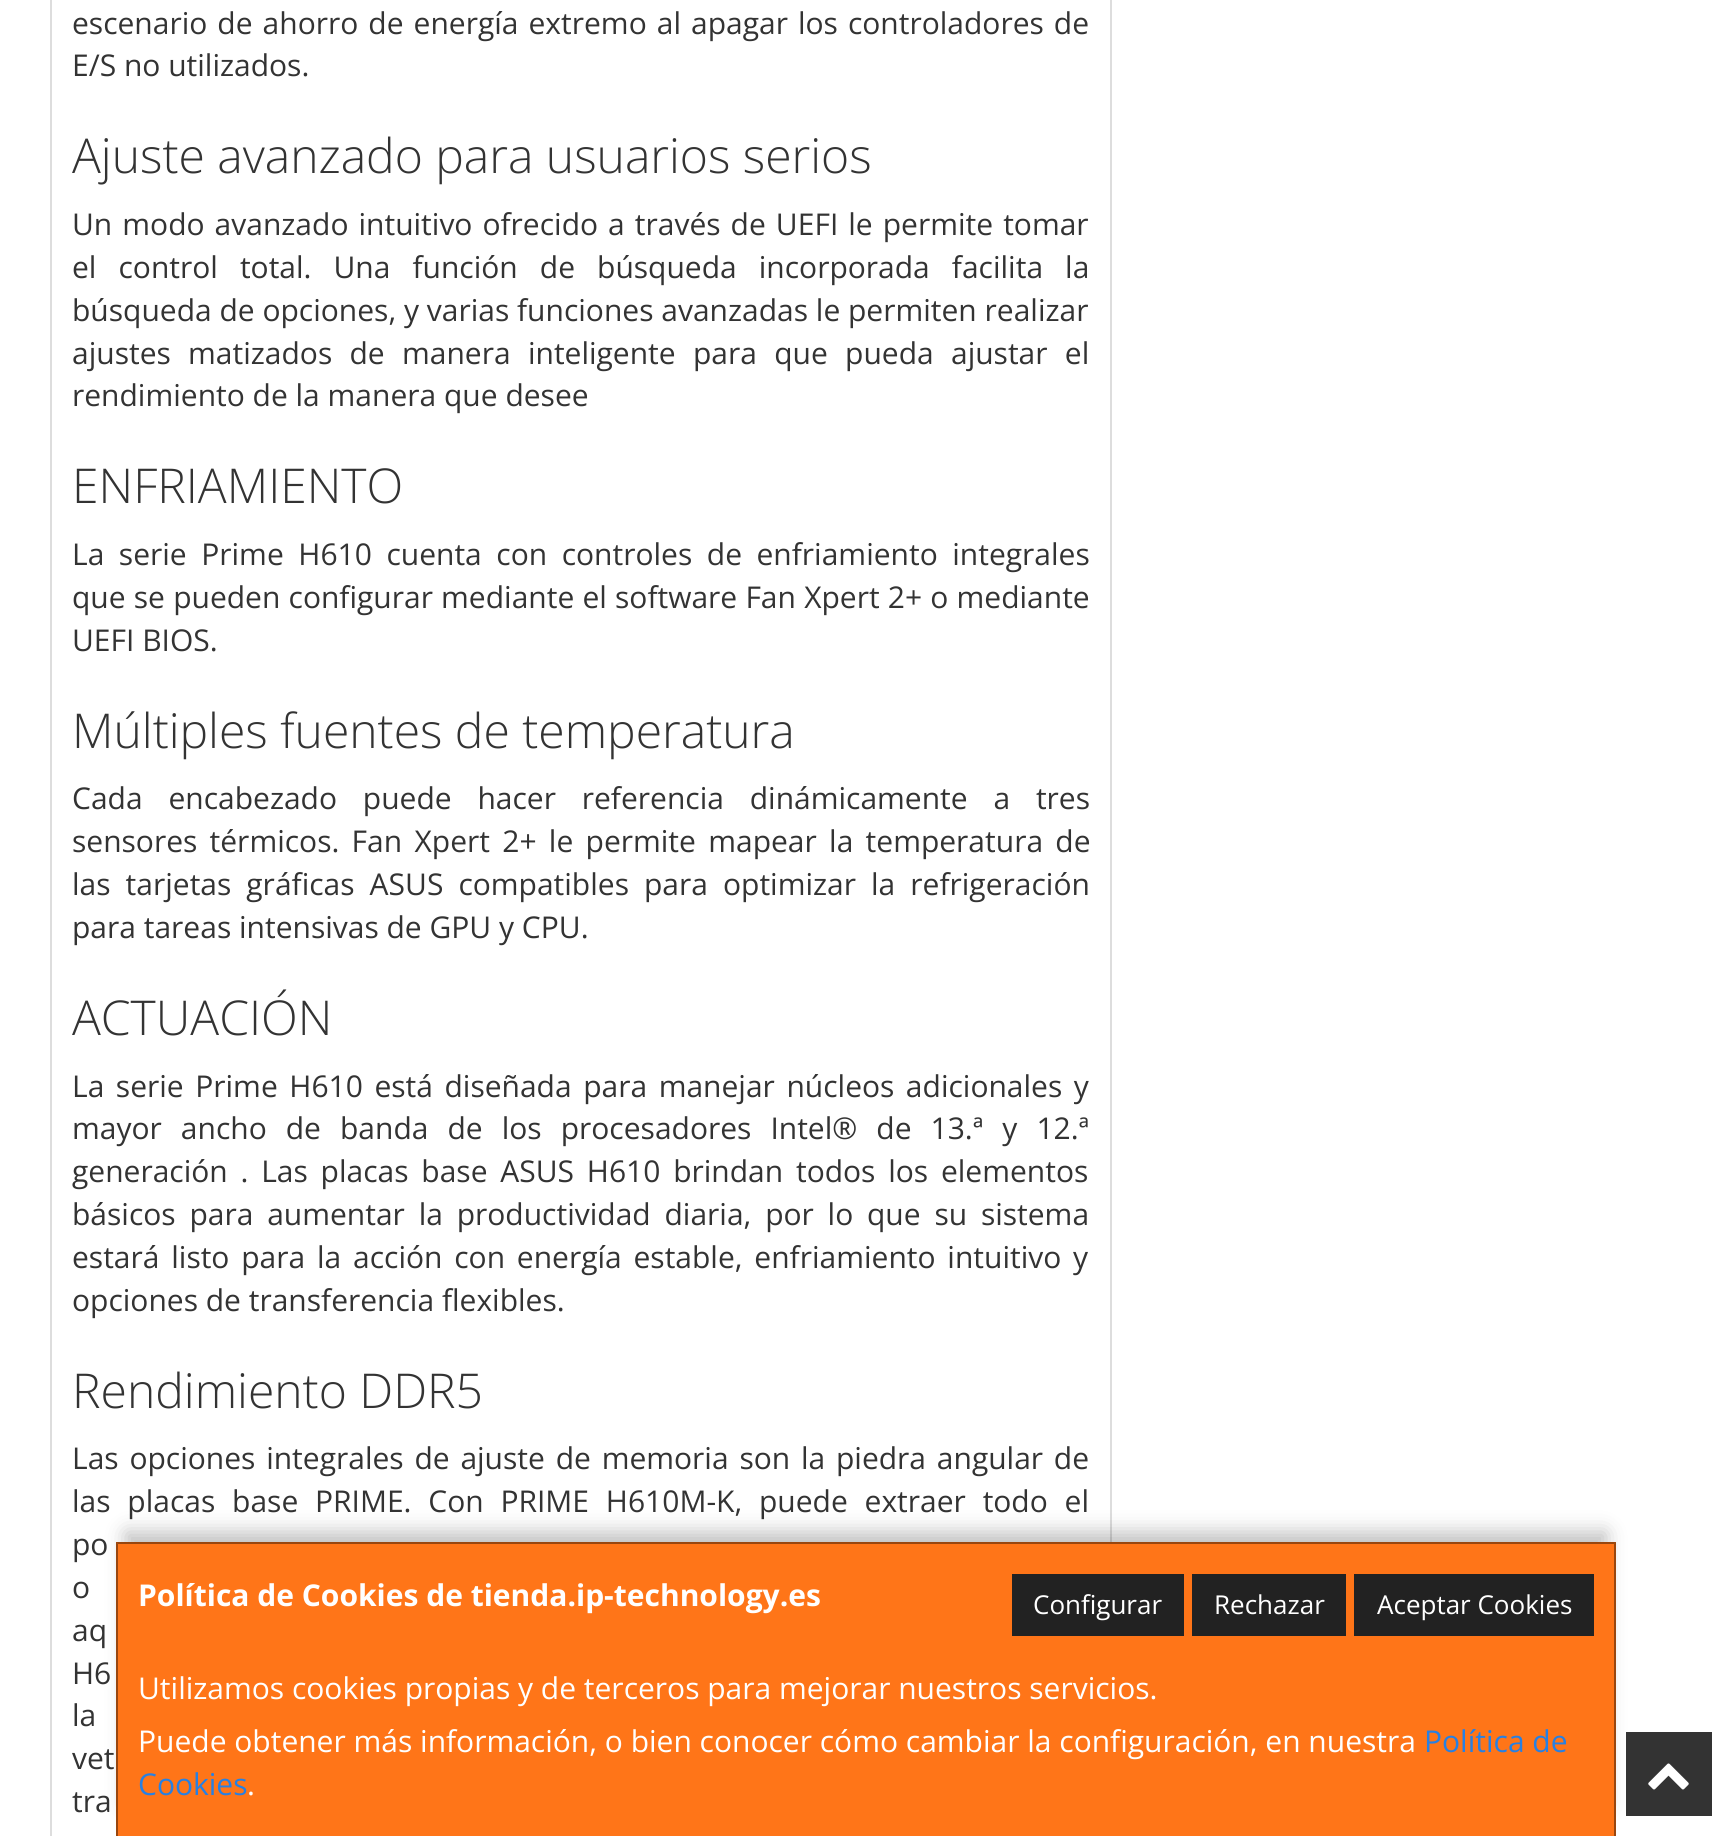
import math
import cairocffi as cairo

surface = cairo.ImageSurface(cairo.FORMAT_RGB24, 1731, 1836)
cr = cairo.Context(surface)
options = cairo.FontOptions()
options.set_hint_metrics(cairo.HINT_METRICS_OFF)
options.set_hint_style(cairo.HINT_STYLE_NONE)
cr.set_font_options(options)
cr.set_miter_limit(4)


def use_color(code):
    cr.set_source_rgb(*(v / 255 for v in bytes.fromhex(code[-6:])))


def spaced_text(x, y, s, letter, word):
    cr.move_to(x, y)
    for ch in s:
        cr.show_text(ch)
        cr.rel_move_to(letter + word * (ch == ' '), 0)


def round_rect(x, y, w, h, r):
    cr.new_sub_path()
    for i, (u, v) in enumerate([(x + w - r, y + h - r), (x + r, y + h - r), (x + r, y + r), (x + w - r, y + r)]):
        cr.arc(u, v, r, i * math.pi / 2, (i + 1) * math.pi / 2)
    cr.close_path()


def shadow(x, y, w, h, r, blur, alpha):
    cr.push_group_with_content(cairo.CONTENT_ALPHA)
    cr.set_operator(cairo.OPERATOR_SOURCE)
    for i in range(15, -16, -2):
        e = blur * i / 6
        if min(w, h) + 2 * e > 0:
            cr.set_source_rgba(0, 0, 0, alpha * math.erfc((i - 1) / 8.5) / 2)
            round_rect(x - e, y - e, w + 2 * e, h + 2 * e, max(0, min(r + e + blur * .6, min(w, h) / 2 + e)))
            cr.fill()
    cr.mask(cr.pop_group())


def picture(path, x, y, w, h):
    cr.save()
    cr.set_source_surface(cairo.ImageSurface.create_from_png(path), x, y)
    cr.rectangle(x, y, w, h)
    cr.fill()
    cr.restore()


use_color("#ffffff")
cr.paint()
cr.rectangle(51, -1, 1060, 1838)
use_color("#dddddd")
cr.stroke()
cr.select_font_face("Open Sans")
cr.set_font_size(30)
use_color("#333333")
spaced_text(72, 34, "escenario de ahorro de energía extremo al apagar los controladores de", 0, 2.25)
cr.move_to(72, 76)
cr.show_text("E/S no utilizados.")
cr.select_font_face("Open Sans Light")
cr.set_font_size(48)
cr.move_to(72, 173)
cr.show_text("Ajuste avanzado para usuarios serios")
cr.select_font_face("Open Sans")
cr.set_font_size(30)
spaced_text(72, 235, "Un modo avanzado intuitivo ofrecido a través de UEFI le permite tomar", 0, 2.25)
spaced_text(72, 278, "el control total. Una función de búsqueda incorporada facilita la", 0, 14.25)
cr.move_to(72, 321)
cr.show_text("búsqueda de opciones, y varias funciones avanzadas le permiten realizar")
spaced_text(72, 364, "ajustes matizados de manera inteligente para que pueda ajustar el", 0, 9.5)
cr.move_to(72, 406)
cr.show_text("rendimiento de la manera que desee")
cr.select_font_face("Open Sans Light")
cr.set_font_size(48)
cr.move_to(72, 503)
cr.show_text("ENFRIAMIENTO")
cr.select_font_face("Open Sans")
cr.set_font_size(30)
spaced_text(72, 565, "La serie Prime H610 cuenta con controles de enfriamiento integrales", 0, 6.75)
spaced_text(72, 608, "que se pueden configurar mediante el software Fan Xpert 2+ o mediante", 0, 0.4)
cr.move_to(72, 651)
cr.show_text("UEFI BIOS.")
cr.select_font_face("Open Sans Light")
cr.set_font_size(48)
cr.move_to(72, 748)
cr.show_text("Múltiples fuentes de temperatura")
cr.select_font_face("Open Sans")
cr.set_font_size(30)
spaced_text(72, 809, "Cada encabezado puede hacer referencia dinámicamente a tres", 0, 18)
spaced_text(72, 852, "sensores térmicos. Fan Xpert 2+ le permite mapear la temperatura de", 0, 4.5)
spaced_text(72, 895, "las tarjetas gráficas ASUS compatibles para optimizar la refrigeración", 0, 7.25)
cr.move_to(72, 938)
cr.show_text("para tareas intensivas de GPU y CPU.")
cr.select_font_face("Open Sans Light")
cr.set_font_size(48)
cr.move_to(72, 1035)
cr.show_text("ACTUACIÓN")
cr.select_font_face("Open Sans")
cr.set_font_size(30)
spaced_text(72, 1097, "La serie Prime H610 está diseñada para manejar núcleos adicionales y", 0, 3.75)
spaced_text(72, 1139, "mayor ancho de banda de los procesadores Intel® de 13.ª y 12.ª", 0, 11.25)
spaced_text(72, 1182, "generación . Las placas base ASUS H610 brindan todos los elementos", 0, 5)
spaced_text(72, 1225, "básicos para aumentar la productividad diaria, por lo que su sistema", 0, 6)
spaced_text(72, 1268, "estará listo para la acción con energía estable, enfriamiento intuitivo y", 0, 4)
cr.move_to(72, 1311)
cr.show_text("opciones de transferencia flexibles.")
cr.select_font_face("Open Sans Light")
cr.set_font_size(48)
cr.move_to(72, 1408)
cr.show_text("Rendimiento DDR5")
cr.select_font_face("Open Sans")
cr.set_font_size(30)
spaced_text(72, 1469, "Las opciones integrales de ajuste de memoria son la piedra angular de", 0, 3)
spaced_text(72, 1512, "las placas base PRIME. Con PRIME H610M-K, puede extraer todo el", 0, 9)
spaced_text(72, 1555, "po", 0, 1)
spaced_text(72, 1598, "o", 0, 7)
spaced_text(72, 1641, "aq", 0, 4)
spaced_text(72, 1684, "H6", 0, 1)
spaced_text(72, 1726, "la", 0, 16)
spaced_text(72, 1769, "vet", 0, 3)
cr.move_to(72, 1812)
cr.show_text("tra")
cr.rectangle(1626, 1732, 86, 84)
cr.fill()
use_color("#000000")
shadow(126, 1532, 1480, 274, 0, 10, 0.25)
use_color("#ff7518")
cr.rectangle(116, 1542, 1500, 294)
cr.fill()
use_color("#99460e")
cr.new_path()
cr.move_to(116, 1542)
cr.line_to(1616, 1542)
cr.line_to(1614, 1544)
cr.line_to(118, 1544)
cr.close_path()
cr.fill()
cr.set_source_rgba(0, 0, 0, 0.4)
cr.new_path()
cr.move_to(1616, 1542)
cr.line_to(1616, 1836)
cr.line_to(1614, 1836)
cr.line_to(1614, 1544)
cr.close_path()
cr.fill()
cr.new_path()
cr.move_to(116, 1836)
cr.line_to(116, 1542)
cr.line_to(118, 1544)
cr.line_to(118, 1836)
cr.close_path()
cr.fill()
cr.select_font_face("Open Sans", cairo.FONT_SLANT_NORMAL, cairo.FONT_WEIGHT_BOLD)
use_color("#ffffff")
cr.move_to(138, 1606)
cr.show_text("Política de Cookies de tienda.ip-technology.es")
use_color("#222222")
cr.rectangle(1012, 1574, 172, 62)
cr.fill()
cr.select_font_face("Open Sans")
cr.set_font_size(26)
use_color("#ffffff")
cr.move_to(1033, 1614)
cr.show_text("Configurar")
use_color("#222222")
cr.rectangle(1192, 1574, 154, 62)
cr.fill()
use_color("#ffffff")
cr.move_to(1214, 1614)
cr.show_text("Rechazar")
use_color("#222222")
cr.rectangle(1354, 1574, 240, 62)
cr.fill()
use_color("#ffffff")
cr.move_to(1377, 1614)
cr.show_text("Aceptar Cookies")
cr.set_font_size(30)
cr.move_to(138, 1699)
cr.show_text("Utilizamos cookies propias y de terceros para mejorar nuestros servicios.")
cr.move_to(138, 1752)
cr.show_text("Puede obtener más información, o bien conocer cómo cambiar la configuración, en nuestra")
use_color("#2780e3")
cr.move_to(1424, 1752)
cr.show_text("Política de")
cr.move_to(138, 1795)
cr.show_text("Cookies")
use_color("#ffffff")
cr.move_to(247, 1795)
cr.show_text(".")
picture("img1.png", 1648, 1763, 41, 27)
surface.write_to_png("result.png")
